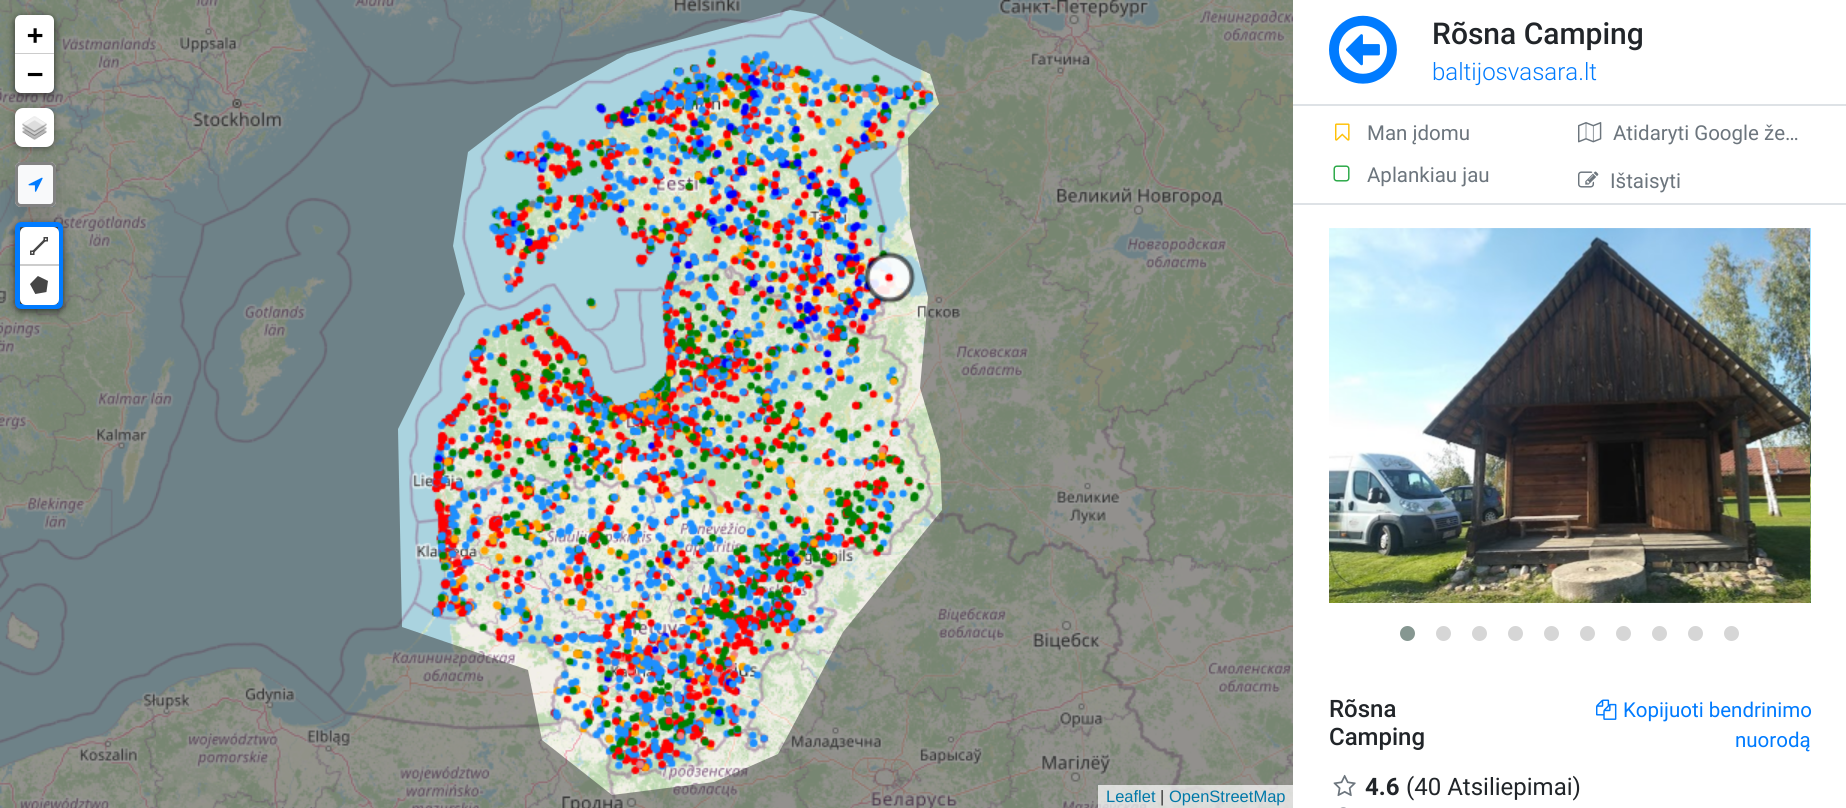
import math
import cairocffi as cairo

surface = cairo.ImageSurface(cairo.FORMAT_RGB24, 1846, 808)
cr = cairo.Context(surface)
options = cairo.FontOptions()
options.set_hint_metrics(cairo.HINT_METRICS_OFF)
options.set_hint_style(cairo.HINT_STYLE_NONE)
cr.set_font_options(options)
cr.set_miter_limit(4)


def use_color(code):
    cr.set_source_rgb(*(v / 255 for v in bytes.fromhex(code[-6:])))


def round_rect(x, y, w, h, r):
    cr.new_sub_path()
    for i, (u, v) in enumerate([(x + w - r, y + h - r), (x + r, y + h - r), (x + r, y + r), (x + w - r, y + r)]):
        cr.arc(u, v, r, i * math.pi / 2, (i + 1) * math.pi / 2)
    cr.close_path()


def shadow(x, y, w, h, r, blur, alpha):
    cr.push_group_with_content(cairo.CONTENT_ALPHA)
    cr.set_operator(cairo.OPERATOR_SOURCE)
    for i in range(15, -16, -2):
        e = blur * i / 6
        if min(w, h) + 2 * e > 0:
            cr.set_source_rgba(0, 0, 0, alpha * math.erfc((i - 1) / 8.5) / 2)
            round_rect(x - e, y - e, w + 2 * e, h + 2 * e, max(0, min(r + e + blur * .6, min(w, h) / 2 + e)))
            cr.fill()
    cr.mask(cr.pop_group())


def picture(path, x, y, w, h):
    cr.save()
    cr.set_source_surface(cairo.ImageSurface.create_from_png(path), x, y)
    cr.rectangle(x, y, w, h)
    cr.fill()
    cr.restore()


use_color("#ffffff")
cr.paint()
picture("img1.png", 0, 0, 156, 171)
picture("img2.png", 156, 0, 384, 171)
picture("img3.png", 540, 0, 384, 171)
picture("img4.png", 924, 0, 369, 171)
picture("img5.png", 0, 171, 156, 384)
picture("img6.png", 156, 171, 384, 384)
picture("img7.png", 540, 171, 384, 384)
picture("img8.png", 924, 171, 369, 384)
picture("img9.png", 0, 555, 156, 253)
picture("img10.png", 156, 555, 384, 253)
picture("img11.png", 540, 555, 384, 253)
picture("img12.png", 924, 555, 369, 253)
picture("img13.png", 431, 48, 503, 727)
cr.save()
cr.rectangle(0, 0, 1293, 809)
cr.clip()
cr.set_source_rgba(0.2, 0.2, 0.2, 0.5)
cr.set_fill_rule(cairo.FILL_RULE_EVEN_ODD)
cr.new_path()
cr.move_to(1426, 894)
cr.line_to(-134, 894)
cr.line_to(-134, -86)
cr.line_to(1426, -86)
cr.close_path()
cr.move_to(518, 114)
cr.line_to(468, 152)
cr.line_to(453, 246)
cr.line_to(465, 294)
cr.line_to(398, 429)
cr.line_to(402, 627)
cr.line_to(528, 670)
cr.line_to(542, 740)
cr.line_to(612, 795)
cr.line_to(714, 782)
cr.line_to(778, 754)
cr.line_to(843, 632)
cr.line_to(942, 510)
cr.line_to(940, 454)
cr.line_to(920, 388)
cr.line_to(928, 297)
cr.line_to(910, 226)
cr.line_to(908, 138)
cr.line_to(939, 104)
cr.line_to(930, 74)
cr.line_to(892, 56)
cr.line_to(816, 14)
cr.line_to(790, 10)
cr.line_to(627, 54)
cr.close_path()
cr.fill()
cr.restore()
use_color("#000000")
shadow(15, 17, 39, 78, 6, 4, 0.65)
use_color("#ffffff")
cr.new_path()
cr.move_to(21, 15)
cr.line_to(48, 15)
cr.curve_to(51.5, 15, 54, 17.5, 54, 21)
cr.line_to(54, 54)
cr.line_to(15, 54)
cr.line_to(15, 21)
cr.curve_to(15, 17.5, 17.5, 15, 21, 15)
cr.close_path()
cr.fill()
use_color("#cccccc")
cr.rectangle(15, 53, 39, 1)
cr.fill()
cr.select_font_face("DejaVu Sans Mono", cairo.FONT_SLANT_NORMAL, cairo.FONT_WEIGHT_BOLD)
cr.set_font_size(27)
use_color("#000000")
cr.move_to(27, 44)
cr.show_text("+")
use_color("#ffffff")
cr.new_path()
cr.move_to(15, 54)
cr.line_to(54, 54)
cr.line_to(54, 87)
cr.curve_to(54, 90.5, 51.5, 93, 48, 93)
cr.line_to(21, 93)
cr.curve_to(17.5, 93, 15, 90.5, 15, 87)
cr.close_path()
cr.fill()
use_color("#000000")
cr.move_to(27, 83)
cr.show_text("−")
use_color("#000000")
shadow(15, 110, 39, 39, 8, 4, 0.4)
use_color("#ffffff")
round_rect(15, 108, 39, 39, 8)
cr.fill()
picture("img14.png", 22, 116, 25, 24)
use_color("#000000")
shadow(15, 174, 41, 45, 6, 12, 0.15)
use_color("#f8f9fa")
round_rect(15, 162, 41, 45, 6)
cr.fill()
round_rect(16.5, 163.5, 38, 42, 4.5)
cr.set_source_rgba(0.392, 0.392, 0.392, 0.8)
cr.set_line_width(3)
cr.stroke()
picture("img15.png", 28, 177, 15, 15)
use_color("#000000")
shadow(15, 224, 48, 87, 6, 4, 0.65)
round_rect(17.5, 224.5, 43, 82, 3.5)
use_color("#007bff")
cr.set_line_width(5)
cr.stroke()
use_color("#ffffff")
cr.new_path()
cr.move_to(26, 227)
cr.line_to(53, 227)
cr.curve_to(56.5, 227, 59, 229.5, 59, 233)
cr.line_to(59, 264)
cr.line_to(20, 264)
cr.line_to(20, 233)
cr.curve_to(20, 229.5, 22.5, 227, 26, 227)
cr.close_path()
cr.fill()
picture("img16.png", 30, 237, 18, 18)
use_color("#cccccc")
cr.rectangle(20, 264, 39, 2)
cr.fill()
use_color("#ffffff")
cr.new_path()
cr.move_to(20, 266)
cr.line_to(59, 266)
cr.line_to(59, 299)
cr.curve_to(59, 302.5, 56.5, 305, 53, 305)
cr.line_to(26, 305)
cr.curve_to(22.5, 305, 20, 302.5, 20, 299)
cr.close_path()
cr.fill()
picture("img17.png", 30, 276, 18, 18)
cr.set_source_rgba(1, 1, 1, 0.7)
cr.rectangle(1098, 785, 195, 23)
cr.fill()
cr.select_font_face("Liberation Sans")
cr.set_font_size(16.5)
use_color("#0078a8")
cr.move_to(1106, 802)
cr.show_text("Leaflet")
use_color("#333333")
cr.move_to(1160, 802)
cr.show_text("|")
use_color("#0078a8")
cr.move_to(1169, 802)
cr.show_text("OpenStreetMap")
use_color("#dee2e6")
cr.rectangle(1293, 104, 553, 2)
cr.fill()
picture("img18.png", 1329, 15, 68, 69)
cr.select_font_face("Roboto Medium")
cr.set_font_size(30)
use_color("#212529")
cr.move_to(1432, 44)
cr.show_text("Rõsna Camping")
cr.select_font_face("Roboto Light")
cr.set_font_size(24)
use_color("#007bff")
cr.move_to(1432, 80)
cr.show_text("baltijosvasara.lt")
use_color("#dee2e6")
cr.rectangle(1293, 203, 553, 2)
cr.fill()
picture("img19.png", 1335, 123, 15, 18)
cr.select_font_face("Roboto")
cr.set_font_size(20.5)
use_color("#6c757d")
cr.move_to(1367, 140)
cr.show_text("Man įdomu")
picture("img20.png", 1333, 165, 17, 17)
cr.move_to(1367, 182)
cr.show_text("Aplankiau jau")
picture("img21.png", 1578, 122, 24, 21)
cr.move_to(1613, 140)
cr.show_text("Atidaryti Google že…")
picture("img22.png", 1578, 171, 21, 17)
cr.move_to(1610, 188)
cr.show_text("Ištaisyti")
picture("img23.png", 1329, 228, 482, 375)
picture("img24.png", 1329, 228, 482, 375)
picture("img25.png", 1810, 228, 1, 375)
picture("img26.png", 1810, 228, 1, 375)
use_color("#869791")
cr.arc(1407.5, 633.5, 7.5, 0, 2 * math.pi)
cr.fill()
use_color("#d6d6d6")
cr.arc(1443.5, 633.5, 7.5, 0, 2 * math.pi)
cr.fill()
cr.arc(1479.5, 633.5, 7.5, 0, 2 * math.pi)
cr.fill()
cr.arc(1515.5, 633.5, 7.5, 0, 2 * math.pi)
cr.fill()
cr.arc(1551.5, 633.5, 7.5, 0, 2 * math.pi)
cr.fill()
cr.arc(1587.5, 633.5, 7.5, 0, 2 * math.pi)
cr.fill()
cr.arc(1623.5, 633.5, 7.5, 0, 2 * math.pi)
cr.fill()
cr.arc(1659.5, 633.5, 7.5, 0, 2 * math.pi)
cr.fill()
cr.arc(1695.5, 633.5, 7.5, 0, 2 * math.pi)
cr.fill()
cr.arc(1731.5, 633.5, 7.5, 0, 2 * math.pi)
cr.fill()
cr.select_font_face("Roboto Medium")
cr.set_font_size(24)
use_color("#212529")
cr.move_to(1329, 717)
cr.show_text("Rõsna")
cr.move_to(1329, 745)
cr.show_text("Camping")
picture("img27.png", 1596, 699, 21, 21)
cr.select_font_face("Roboto")
cr.set_font_size(20.5)
use_color("#007bff")
cr.move_to(1623, 717)
cr.show_text("Kopijuoti bendrinimo")
cr.move_to(1735, 747)
cr.show_text("nuorodą")
picture("img28.png", 1333, 774, 23, 23)
cr.select_font_face("Roboto", cairo.FONT_SLANT_NORMAL, cairo.FONT_WEIGHT_BOLD)
cr.set_font_size(24)
use_color("#212529")
cr.move_to(1365, 795)
cr.show_text("4.6")
cr.select_font_face("Roboto")
cr.move_to(1406, 795)
cr.show_text("(40 Atsiliepimai)")
picture("img29.png", 1340, 807, 6, 1)
surface.write_to_png("result.png")
